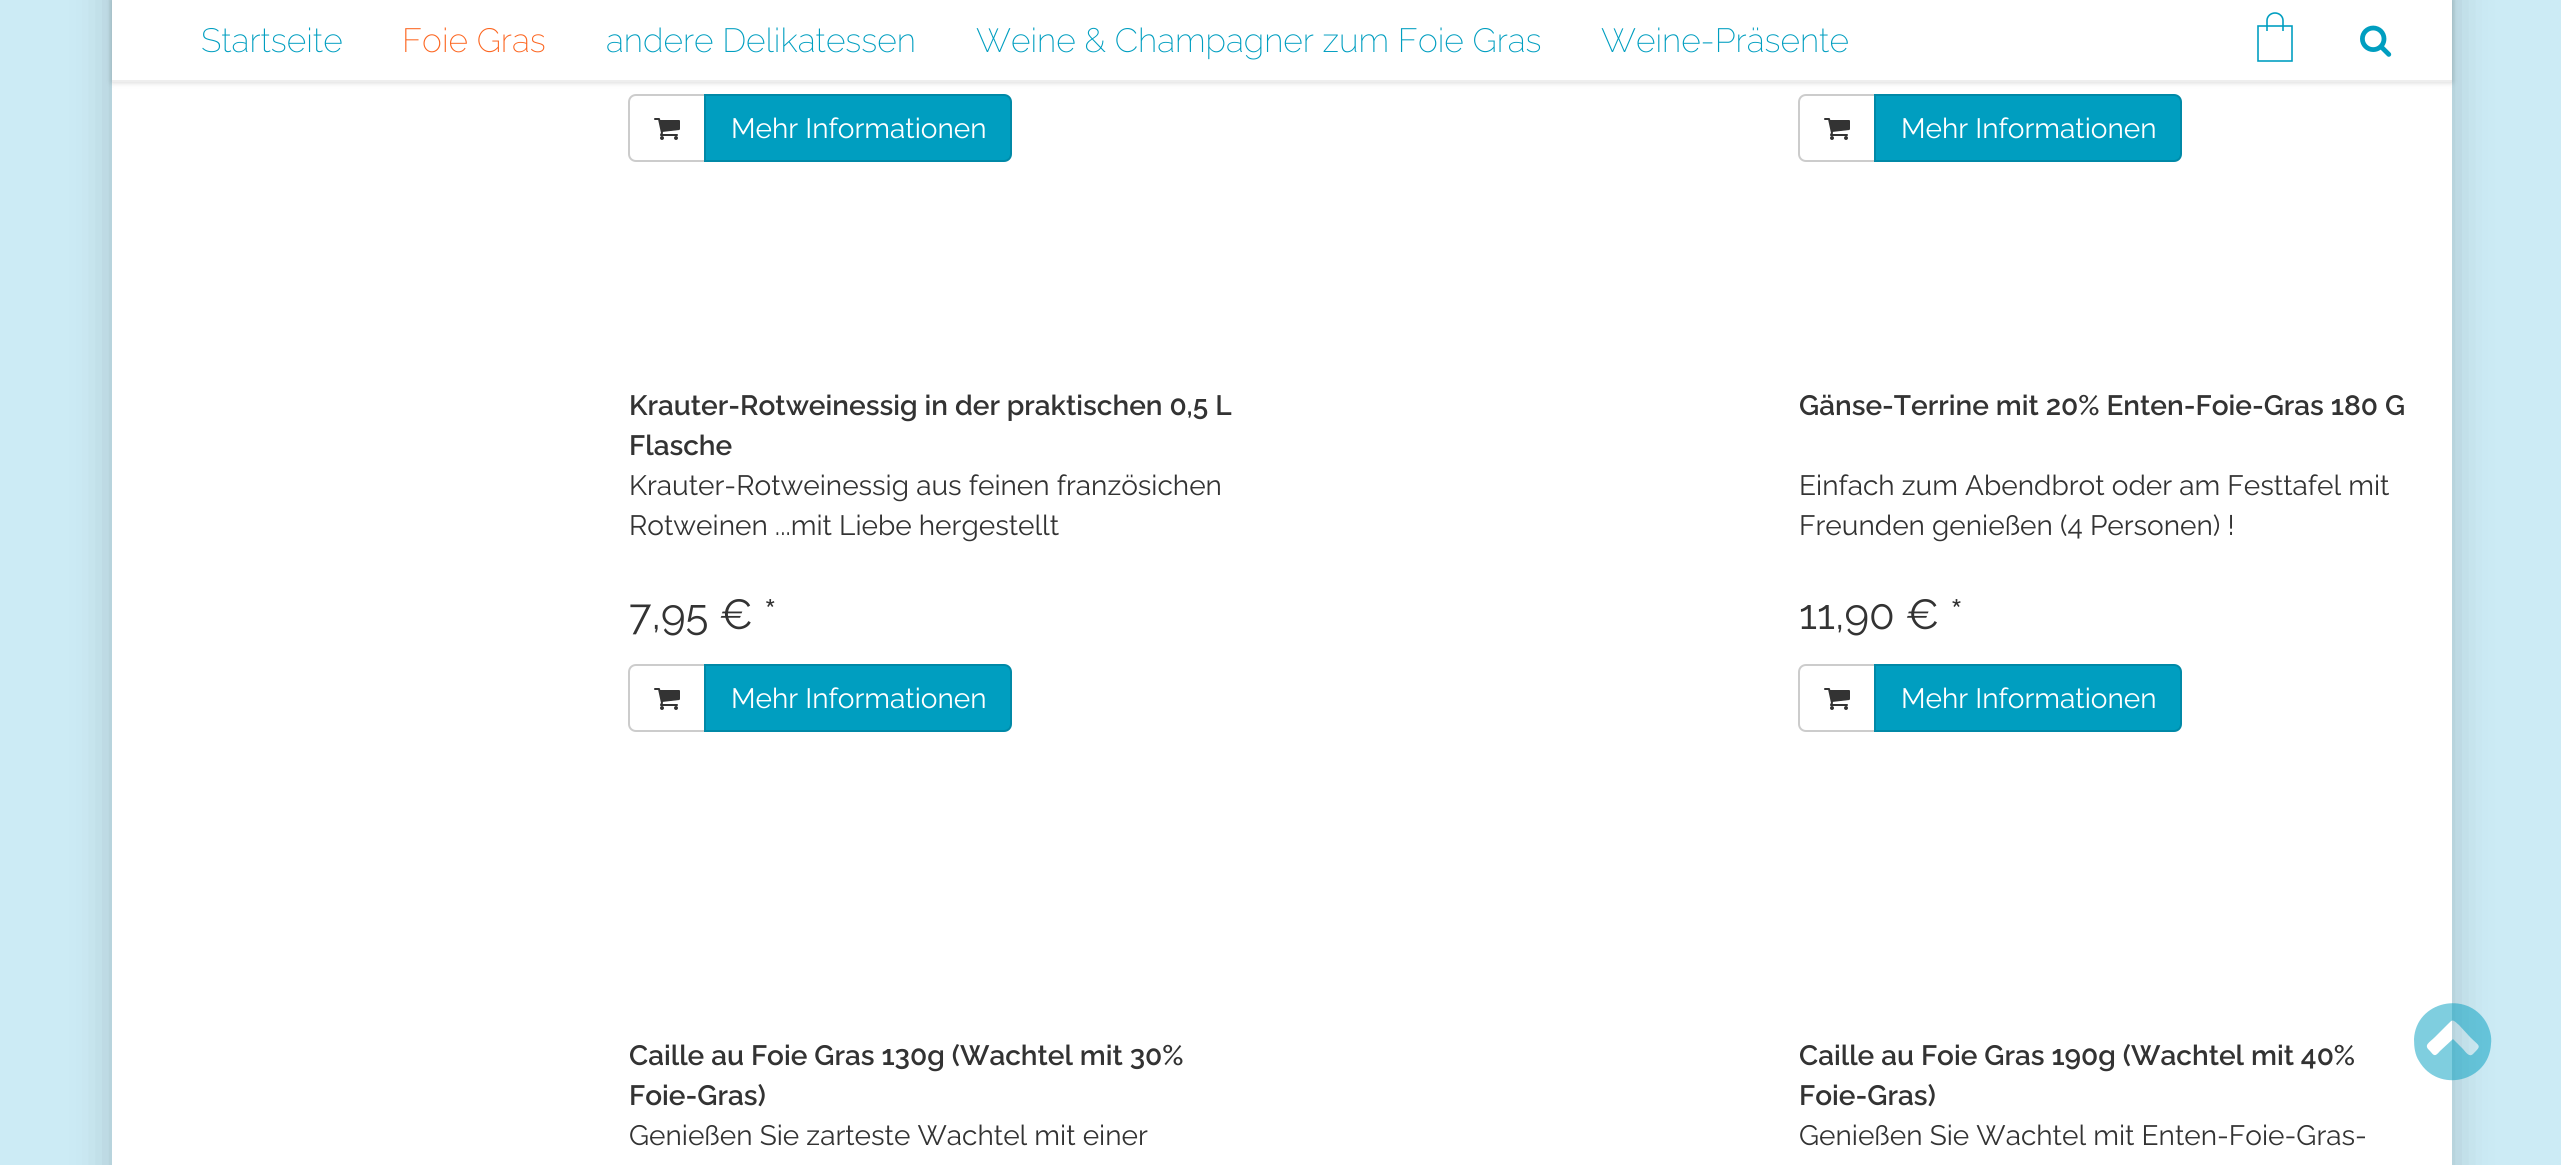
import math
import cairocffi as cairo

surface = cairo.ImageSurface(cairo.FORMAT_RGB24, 2561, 1165)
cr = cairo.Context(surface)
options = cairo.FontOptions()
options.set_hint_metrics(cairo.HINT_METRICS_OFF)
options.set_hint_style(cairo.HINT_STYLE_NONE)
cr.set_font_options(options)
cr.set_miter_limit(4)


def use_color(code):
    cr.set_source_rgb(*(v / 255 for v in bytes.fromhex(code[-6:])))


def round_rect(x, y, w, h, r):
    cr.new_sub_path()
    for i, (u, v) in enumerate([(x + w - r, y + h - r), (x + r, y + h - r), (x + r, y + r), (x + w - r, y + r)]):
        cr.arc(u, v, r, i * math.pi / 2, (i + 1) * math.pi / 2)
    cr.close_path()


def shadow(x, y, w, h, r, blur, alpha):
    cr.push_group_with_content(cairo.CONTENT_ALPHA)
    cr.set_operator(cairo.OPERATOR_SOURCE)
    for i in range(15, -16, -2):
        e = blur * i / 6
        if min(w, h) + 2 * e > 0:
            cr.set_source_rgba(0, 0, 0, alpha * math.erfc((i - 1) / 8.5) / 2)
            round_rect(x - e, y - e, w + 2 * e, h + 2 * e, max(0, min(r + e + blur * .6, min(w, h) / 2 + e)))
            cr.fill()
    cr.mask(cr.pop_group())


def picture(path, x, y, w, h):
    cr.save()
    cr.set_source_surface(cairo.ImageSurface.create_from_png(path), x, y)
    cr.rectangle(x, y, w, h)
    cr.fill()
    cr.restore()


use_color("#ccebf5")
cr.paint()
use_color("#000000")
shadow(112, -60, 2340, 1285, 0, 20, 0.2)
use_color("#ffffff")
cr.rectangle(112, 82, 2340, 1083)
cr.fill()
cr.rectangle(112, 0, 2340, 80)
cr.fill()
cr.save()
cr.set_fill_rule(cairo.FILL_RULE_EVEN_ODD)
cr.new_path()
cr.move_to(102, 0)
cr.line_to(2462, 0)
cr.line_to(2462, 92)
cr.line_to(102, 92)
cr.close_path()
cr.move_to(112, 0)
cr.line_to(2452, 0)
cr.line_to(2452, 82)
cr.line_to(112, 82)
cr.close_path()
cr.clip()
use_color("#000000")
shadow(112, 0, 2340, 82, 0, 3, 0.2)
cr.restore()
use_color("#eeeeee")
cr.rectangle(112, 80, 2340, 2)
cr.fill()
cr.select_font_face("Raleway ExtraLight")
cr.set_font_size(33.6)
use_color("#009ec0")
cr.move_to(201, 52)
cr.show_text("Startseite")
use_color("#fc6621")
cr.move_to(402, 52)
cr.show_text("Foie Gras")
use_color("#009ec0")
cr.move_to(606, 52)
cr.show_text("andere Delikatessen")
cr.move_to(976, 52)
cr.show_text("Weine & Champagner zum Foie Gras")
cr.move_to(1601, 52)
cr.show_text("Weine-Präsente")
cr.new_path()
cr.move_to(2284.5, 26)
cr.line_to(2292, 26)
cr.line_to(2292, 61)
cr.line_to(2258, 61)
cr.line_to(2258, 26)
cr.line_to(2265.5, 26)
cr.close_path()
cr.move_to(2267, 31)
cr.line_to(2267, 20.5)
cr.curve_to(2267, 16.5, 2270.5, 13, 2275, 13)
cr.curve_to(2279.5, 13, 2283, 16.5, 2283, 20.5)
cr.line_to(2283, 31)
cr.set_line_width(1.6)
cr.stroke()
picture("img1.png", 2360, 25, 32, 32)
cr.new_path()
cr.move_to(636, 95)
cr.line_to(705, 95)
cr.line_to(705, 161)
cr.line_to(636, 161)
cr.curve_to(632, 161, 629, 158, 629, 154)
cr.line_to(629, 102)
cr.curve_to(629, 98, 632, 95, 636, 95)
cr.close_path()
use_color("#cccccc")
cr.set_line_width(2)
cr.stroke()
picture("img2.png", 654, 118, 26, 22)
use_color("#009ec0")
cr.new_path()
cr.move_to(705, 95)
cr.line_to(1004, 95)
cr.curve_to(1008, 95, 1011, 98, 1011, 102)
cr.line_to(1011, 154)
cr.curve_to(1011, 158, 1008, 161, 1004, 161)
cr.line_to(705, 161)
cr.close_path()
cr.fill_preserve()
use_color("#0089a7")
cr.stroke()
cr.select_font_face("Raleway")
cr.set_font_size(28)
use_color("#ffffff")
cr.move_to(731, 138)
cr.show_text("Mehr Informationen")
cr.new_path()
cr.move_to(1806, 95)
cr.line_to(1875, 95)
cr.line_to(1875, 161)
cr.line_to(1806, 161)
cr.curve_to(1802, 161, 1799, 158, 1799, 154)
cr.line_to(1799, 102)
cr.curve_to(1799, 98, 1802, 95, 1806, 95)
cr.close_path()
use_color("#cccccc")
cr.stroke()
picture("img2.png", 1824, 118, 26, 22)
use_color("#009ec0")
cr.new_path()
cr.move_to(1875, 95)
cr.line_to(2174, 95)
cr.curve_to(2178, 95, 2181, 98, 2181, 102)
cr.line_to(2181, 154)
cr.curve_to(2181, 158, 2178, 161, 2174, 161)
cr.line_to(1875, 161)
cr.close_path()
cr.fill_preserve()
use_color("#0089a7")
cr.stroke()
use_color("#ffffff")
cr.move_to(1901, 138)
cr.show_text("Mehr Informationen")
cr.select_font_face("Raleway SemiBold")
use_color("#333333")
cr.move_to(629, 415)
cr.show_text("Krauter-Rotweinessig in der praktischen 0,5 L")
cr.move_to(629, 455)
cr.show_text("Flasche")
cr.select_font_face("Raleway")
cr.move_to(629, 495)
cr.show_text("Krauter-Rotweinessig aus feinen französichen")
cr.move_to(629, 535)
cr.show_text("Rotweinen ...mit Liebe hergestellt")
cr.set_font_size(42)
cr.move_to(629, 629)
cr.show_text("7,95 € *")
cr.new_path()
cr.move_to(636, 665)
cr.line_to(705, 665)
cr.line_to(705, 731)
cr.line_to(636, 731)
cr.curve_to(632, 731, 629, 728, 629, 724)
cr.line_to(629, 672)
cr.curve_to(629, 668, 632, 665, 636, 665)
cr.close_path()
use_color("#cccccc")
cr.stroke()
picture("img2.png", 654, 688, 26, 22)
use_color("#009ec0")
cr.new_path()
cr.move_to(705, 665)
cr.line_to(1004, 665)
cr.curve_to(1008, 665, 1011, 668, 1011, 672)
cr.line_to(1011, 724)
cr.curve_to(1011, 728, 1008, 731, 1004, 731)
cr.line_to(705, 731)
cr.close_path()
cr.fill_preserve()
use_color("#0089a7")
cr.stroke()
cr.set_font_size(28)
use_color("#ffffff")
cr.move_to(731, 708)
cr.show_text("Mehr Informationen")
cr.select_font_face("Raleway SemiBold")
use_color("#333333")
cr.move_to(1799, 415)
cr.show_text("Gänse-Terrine mit 20% Enten-Foie-Gras 180 G")
cr.select_font_face("Raleway")
cr.move_to(1799, 495)
cr.show_text("Einfach zum Abendbrot oder am Festtafel mit")
cr.move_to(1799, 535)
cr.show_text("Freunden genießen (4 Personen) !")
cr.set_font_size(42)
cr.move_to(1799, 629)
cr.show_text("11,90 € *")
cr.new_path()
cr.move_to(1806, 665)
cr.line_to(1875, 665)
cr.line_to(1875, 731)
cr.line_to(1806, 731)
cr.curve_to(1802, 731, 1799, 728, 1799, 724)
cr.line_to(1799, 672)
cr.curve_to(1799, 668, 1802, 665, 1806, 665)
cr.close_path()
use_color("#cccccc")
cr.stroke()
picture("img2.png", 1824, 688, 26, 22)
use_color("#009ec0")
cr.new_path()
cr.move_to(1875, 665)
cr.line_to(2174, 665)
cr.curve_to(2178, 665, 2181, 668, 2181, 672)
cr.line_to(2181, 724)
cr.curve_to(2181, 728, 2178, 731, 2174, 731)
cr.line_to(1875, 731)
cr.close_path()
cr.fill_preserve()
use_color("#0089a7")
cr.stroke()
cr.set_font_size(28)
use_color("#ffffff")
cr.move_to(1901, 708)
cr.show_text("Mehr Informationen")
cr.select_font_face("Raleway SemiBold")
use_color("#333333")
cr.move_to(629, 1065)
cr.show_text("Caille au Foie Gras 130g (Wachtel mit 30%")
cr.move_to(629, 1105)
cr.show_text("Foie-Gras)")
cr.select_font_face("Raleway")
cr.move_to(629, 1145)
cr.show_text("Genießen Sie zarteste Wachtel mit einer")
cr.select_font_face("Raleway SemiBold")
cr.move_to(1799, 1065)
cr.show_text("Caille au Foie Gras 190g (Wachtel mit 40%")
cr.move_to(1799, 1105)
cr.show_text("Foie-Gras)")
cr.select_font_face("Raleway")
cr.move_to(1799, 1145)
cr.show_text("Genießen Sie Wachtel mit Enten-Foie-Gras-")
cr.set_source_rgba(0, 0.62, 0.753, 0.5)
cr.new_path()
cr.move_to(2473, 1054)
cr.curve_to(2482, 1045, 2480, 1047, 2470, 1037)
cr.line_to(2459, 1025)
cr.curve_to(2452, 1019, 2453, 1019, 2447, 1025)
cr.line_to(2435, 1037)
cr.curve_to(2429, 1043, 2423, 1045, 2430, 1051)
cr.curve_to(2434, 1056, 2435, 1057, 2440, 1051)
cr.line_to(2453, 1039)
cr.line_to(2463, 1049)
cr.curve_to(2465, 1051, 2469, 1058, 2473, 1054)
cr.close_path()
cr.move_to(2486, 1022)
cr.curve_to(2490, 1029, 2492, 1037, 2491, 1044)
cr.curve_to(2489, 1082, 2438, 1094, 2419, 1061)
cr.curve_to(2415, 1055, 2414, 1047, 2414, 1039)
cr.curve_to(2416, 1001, 2467, 990, 2486, 1022)
cr.close_path()
cr.fill()
surface.write_to_png("result.png")
